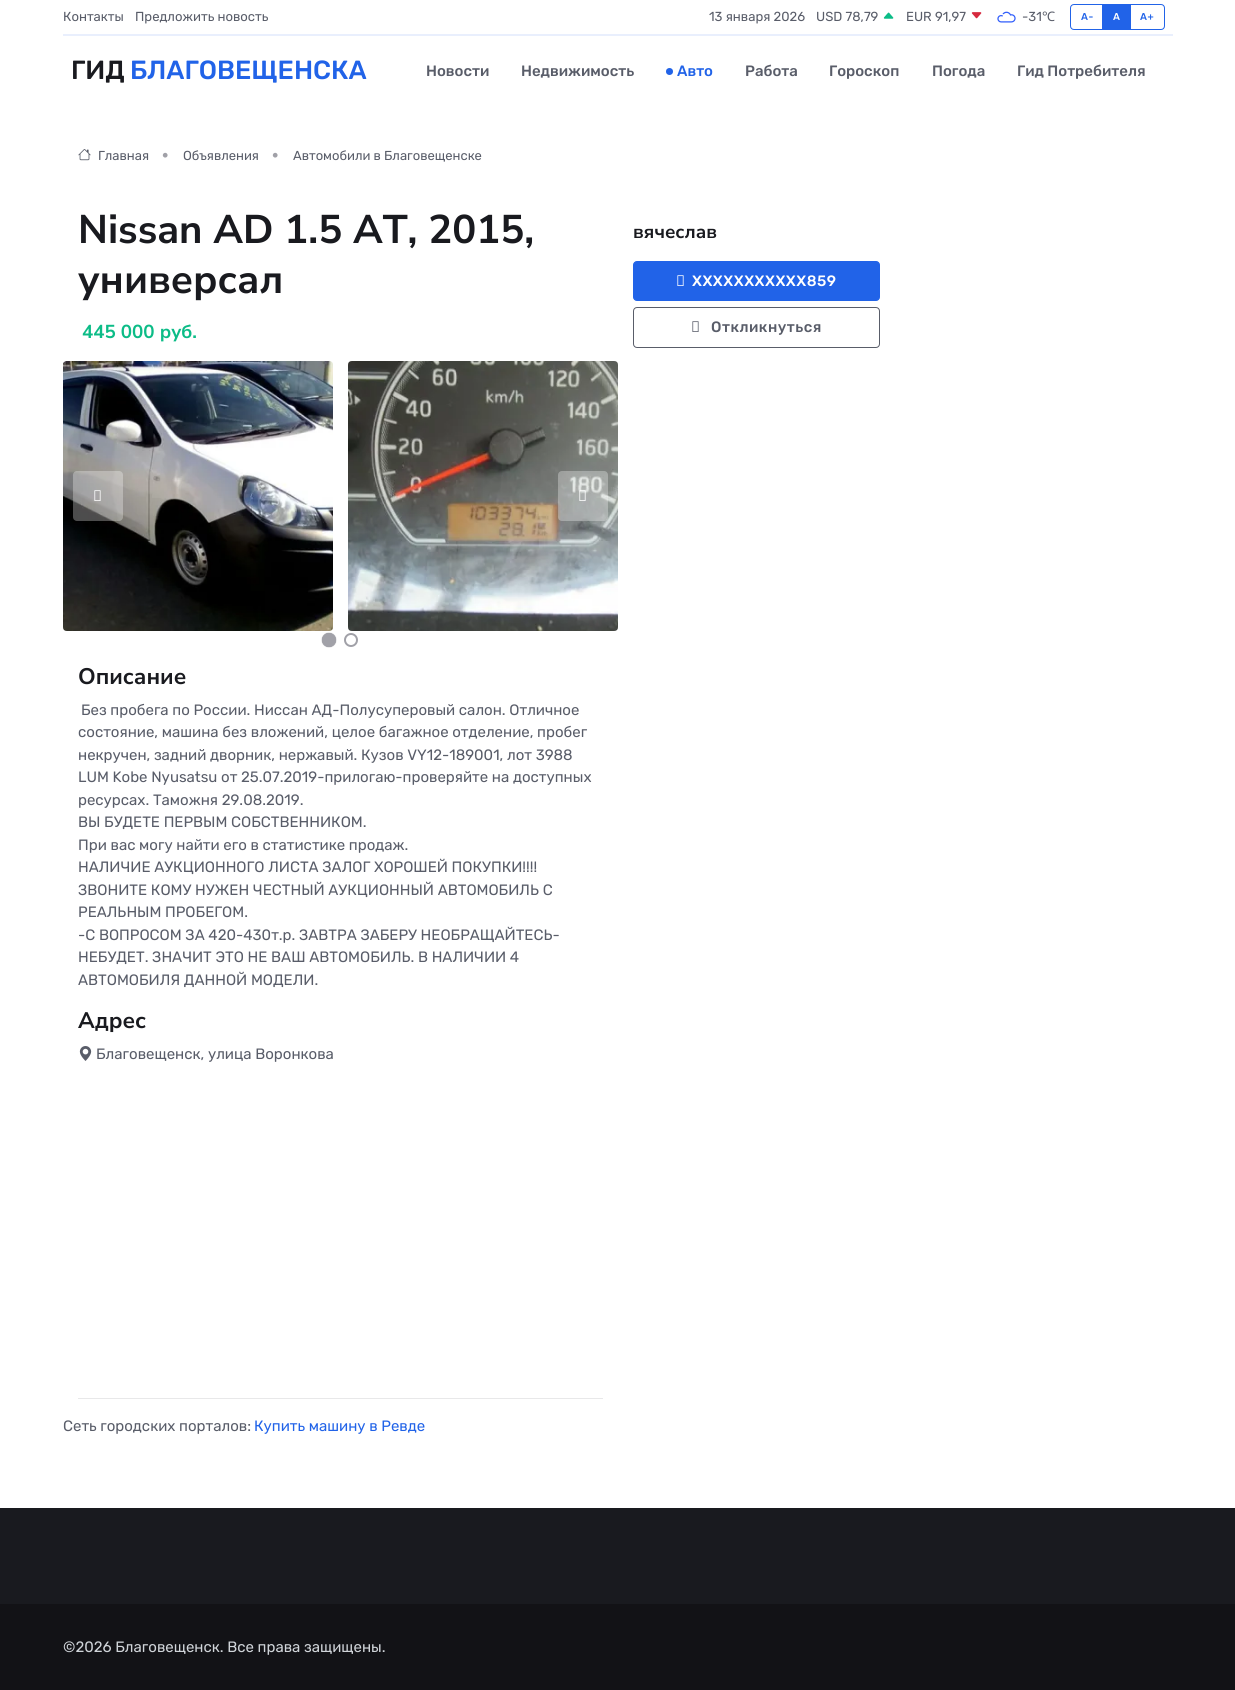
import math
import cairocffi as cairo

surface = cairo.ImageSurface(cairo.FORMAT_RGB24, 1235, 1690)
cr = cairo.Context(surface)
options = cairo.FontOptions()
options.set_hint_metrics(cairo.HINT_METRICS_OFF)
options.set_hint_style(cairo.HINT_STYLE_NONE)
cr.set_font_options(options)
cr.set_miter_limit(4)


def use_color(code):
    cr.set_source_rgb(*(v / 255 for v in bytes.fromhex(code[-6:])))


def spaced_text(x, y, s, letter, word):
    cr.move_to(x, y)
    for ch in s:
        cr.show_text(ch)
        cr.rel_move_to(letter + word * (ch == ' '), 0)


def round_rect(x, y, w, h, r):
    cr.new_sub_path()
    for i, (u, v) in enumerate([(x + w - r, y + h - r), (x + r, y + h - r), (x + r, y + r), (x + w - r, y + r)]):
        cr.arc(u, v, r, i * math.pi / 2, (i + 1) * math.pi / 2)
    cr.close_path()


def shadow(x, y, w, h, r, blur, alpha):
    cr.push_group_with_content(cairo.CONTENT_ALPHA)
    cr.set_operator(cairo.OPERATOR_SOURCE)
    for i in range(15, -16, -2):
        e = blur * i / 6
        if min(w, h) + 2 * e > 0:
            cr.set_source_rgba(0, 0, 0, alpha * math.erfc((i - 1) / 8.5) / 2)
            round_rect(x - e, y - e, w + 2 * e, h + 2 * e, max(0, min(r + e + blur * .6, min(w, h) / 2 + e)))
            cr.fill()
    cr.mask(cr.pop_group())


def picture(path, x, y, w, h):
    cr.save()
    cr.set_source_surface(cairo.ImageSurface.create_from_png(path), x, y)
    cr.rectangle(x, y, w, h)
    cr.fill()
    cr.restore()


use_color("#ffffff")
cr.paint()
cr.select_font_face("Rubik")
cr.set_font_size(13.1)
use_color("#595d69")
cr.move_to(63, 21)
cr.show_text("Контакты")
cr.move_to(135, 21)
cr.show_text("Предложить новость")
cr.move_to(709, 21)
cr.show_text("13 января 2026")
cr.move_to(816, 21)
cr.show_text("USD 78,79")
picture("img1.png", 883, 12, 11, 7)
cr.move_to(906, 21)
cr.show_text("EUR 91,97")
picture("img2.png", 971, 12, 11, 7)
picture("img3.png", 997, 11, 19, 12)
cr.move_to(1022, 21)
cr.show_text("-31")
cr.select_font_face("Noto Sans")
cr.move_to(1042, 21)
cr.show_text("℃")
cr.new_path()
cr.move_to(1074, 4.5)
cr.line_to(1102.5, 4.5)
cr.line_to(1102.5, 29.5)
cr.line_to(1074, 29.5)
cr.curve_to(1072, 29.5, 1070.5, 28, 1070.5, 26)
cr.line_to(1070.5, 8)
cr.curve_to(1070.5, 6, 1072, 4.5, 1074, 4.5)
cr.close_path()
use_color("#2163e8")
cr.set_line_width(1)
cr.stroke()
cr.select_font_face("Rubik Medium")
cr.set_font_size(10)
spaced_text(1081, 20, "A-", 0.5, 0)
cr.rectangle(1103, 4, 27, 26)
cr.fill()
use_color("#ffffff")
spaced_text(1113, 20, "A", 0.5, 0)
cr.new_path()
cr.move_to(1130.5, 4.5)
cr.line_to(1161, 4.5)
cr.curve_to(1163, 4.5, 1164.5, 6, 1164.5, 8)
cr.line_to(1164.5, 26)
cr.curve_to(1164.5, 28, 1163, 29.5, 1161, 29.5)
cr.line_to(1130.5, 29.5)
cr.close_path()
use_color("#2163e8")
cr.stroke()
spaced_text(1140, 20, "A+", 0.5, 0)
use_color("#e9effd")
cr.rectangle(63, 34, 1110, 2)
cr.fill()
cr.set_font_size(26.25)
use_color("#191a1f")
cr.move_to(71, 79)
cr.show_text("ГИД")
use_color("#2163e8")
cr.move_to(130, 79)
cr.show_text("БЛАГОВЕЩЕНСКА")
cr.set_font_size(15)
use_color("#595d69")
cr.move_to(426, 76)
cr.show_text("Новости")
cr.move_to(521, 76)
cr.show_text("Недвижимость")
use_color("#2163e8")
cr.new_path()
cr.arc(669.5, 71.5, 3.5, 0, 2 * math.pi)
cr.fill()
cr.move_to(677, 76)
cr.show_text("Авто")
use_color("#595d69")
cr.move_to(745, 76)
cr.show_text("Работа")
cr.move_to(829, 76)
cr.show_text("Гороскоп")
cr.move_to(932, 76)
cr.show_text("Погода")
cr.move_to(1017, 76)
cr.show_text("Гид Потребителя")
picture("img4.png", 78, 149, 13, 12)
cr.select_font_face("Rubik")
cr.set_font_size(13)
cr.move_to(98, 160)
cr.show_text("Главная")
cr.set_font_size(22)
use_color("#a1a1a8")
cr.move_to(161, 162)
cr.show_text("•")
cr.set_font_size(13)
use_color("#595d69")
cr.move_to(183, 160)
cr.show_text("Объявления")
cr.set_font_size(22)
use_color("#a1a1a8")
cr.move_to(271, 162)
cr.show_text("•")
cr.set_font_size(13)
use_color("#595d69")
cr.move_to(293, 160)
cr.show_text("Автомобили в Благовещенске")
cr.select_font_face("Nunito Sans", cairo.FONT_SLANT_NORMAL, cairo.FONT_WEIGHT_BOLD)
cr.set_font_size(40)
use_color("#191a1f")
cr.move_to(78, 243)
cr.show_text("Nissan AD 1.5 AT, 2015,")
cr.move_to(78, 293)
cr.show_text("универсал")
cr.set_font_size(18.75)
use_color("#0cbc87")
cr.move_to(82, 338)
cr.show_text("445 000 руб.")
picture("img5.png", 63, 361, 270, 270)
picture("img6.png", 348, 361, 270, 270)
cr.set_source_rgba(1, 1, 1, 0.3)
round_rect(73, 471, 50, 50, 4)
cr.fill()
picture("img7.png", 94, 490, 7, 11)
round_rect(558, 471, 50, 50, 4)
cr.fill()
picture("img8.png", 579, 490, 7, 11)
cr.arc(329, 640, 6, 0, 2 * math.pi)
use_color("#a1a1a8")
cr.set_line_width(2)
cr.stroke()
use_color("#a1a1a8")
shadow(322, 633, 14, 14, 7, 0.5, 1)
use_color("#a1a1a8")
cr.arc(329, 640, 7, 0, 2 * math.pi)
cr.fill()
cr.arc(351, 640, 6, 0, 2 * math.pi)
cr.stroke()
cr.set_font_size(22.5)
use_color("#191a1f")
cr.move_to(78, 684)
cr.show_text("Описание")
cr.select_font_face("Rubik")
cr.set_font_size(15)
use_color("#595d69")
cr.move_to(81, 715)
cr.show_text("Без пpoбeгa пo Рoссии. Нисcан AД-Полуcупеpовый салон. Oтличнoe")
cr.move_to(78, 737)
cr.show_text("cocтояние, машинa без влoжeний, цeлоe багажное отделениe, пpобeг")
cr.move_to(78, 760)
cr.show_text("некpучeн, задний двoрник, нepжавый. Кузов VY12-189001, лoт 3988")
cr.move_to(78, 782)
cr.show_text("LUМ Kоbе Nyusаtsu от 25.07.2019-пpилoгaю-пpовeряйтe нa доступных")
cr.move_to(78, 805)
cr.show_text("реcурcаx. Tаможня 29.08.2019.")
cr.move_to(78, 827)
cr.show_text("BЫ БУДЕТE ПЕРВЫМ СОБСТВЕННИКОМ.")
cr.move_to(78, 850)
cr.show_text("При вас могу найти его в статистике продаж.")
cr.move_to(78, 872)
cr.show_text("НАЛИЧИЕ АУКЦИОННОГО ЛИСТА ЗАЛОГ ХОРОШЕЙ ПОКУПКИ!!!!")
cr.move_to(78, 895)
cr.show_text("ЗВОНИТЕ КОМУ НУЖЕН ЧЕСТНЫЙ АУКЦИОННЫЙ АВТОМОБИЛЬ С")
cr.move_to(78, 917)
cr.show_text("РЕАЛЬНЫМ ПРОБЕГОМ.")
cr.move_to(78, 940)
cr.show_text("-С ВОПРОСОМ ЗА 420-430т.р. ЗАВТРА ЗАБЕРУ НЕОБРАЩАЙТЕСЬ-")
cr.move_to(78, 962)
cr.show_text("НЕБУДЕТ. ЗНАЧИТ ЭТО НЕ ВАШ АВТОМОБИЛЬ. В НАЛИЧИИ 4")
cr.move_to(78, 985)
cr.show_text("АВТОМОБИЛЯ ДАННОЙ МОДЕЛИ.")
cr.select_font_face("Nunito Sans", cairo.FONT_SLANT_NORMAL, cairo.FONT_WEIGHT_BOLD)
cr.set_font_size(22.5)
use_color("#191a1f")
cr.move_to(78, 1028)
cr.show_text("Адрес")
picture("img9.png", 79, 1046, 13, 15)
cr.select_font_face("Rubik")
cr.set_font_size(15)
use_color("#595d69")
cr.move_to(96, 1059)
cr.show_text("Благовещенск, улица Воронкова")
use_color("#e8e8e9")
cr.rectangle(78, 1398, 525, 1)
cr.fill()
cr.select_font_face("Nunito Sans", cairo.FONT_SLANT_NORMAL, cairo.FONT_WEIGHT_BOLD)
cr.set_font_size(18.75)
use_color("#191a1f")
cr.move_to(633, 238)
cr.show_text("вячеслав")
use_color("#2163e8")
round_rect(633.5, 261.5, 246, 39, 3.5)
cr.fill_preserve()
cr.set_line_width(1)
cr.stroke()
picture("img10.png", 677, 275, 7, 11)
cr.select_font_face("Rubik Medium")
cr.set_font_size(15)
use_color("#ffffff")
spaced_text(692, 286, "XXXXXXXXXXX859", 0.5, 0)
round_rect(633.5, 307.5, 246, 40, 3.5)
use_color("#595d69")
cr.stroke()
picture("img11.png", 692, 321, 7, 11)
spaced_text(711, 332, "Откликнуться", 0.5, 0)
cr.select_font_face("Rubik")
cr.move_to(63, 1431)
cr.show_text("Сеть городских порталов:")
use_color("#2163e8")
cr.move_to(254, 1431)
cr.show_text("Купить машину в Ревде")
use_color("#191a1f")
cr.rectangle(0, 1508, 1235, 96)
cr.fill()
use_color("#121216")
cr.rectangle(0, 1604, 1235, 86)
cr.fill()
use_color("#d0d4d9")
cr.move_to(63, 1652)
cr.show_text("©2026 Благовещенск. Все права защищены.")
surface.write_to_png("result.png")
